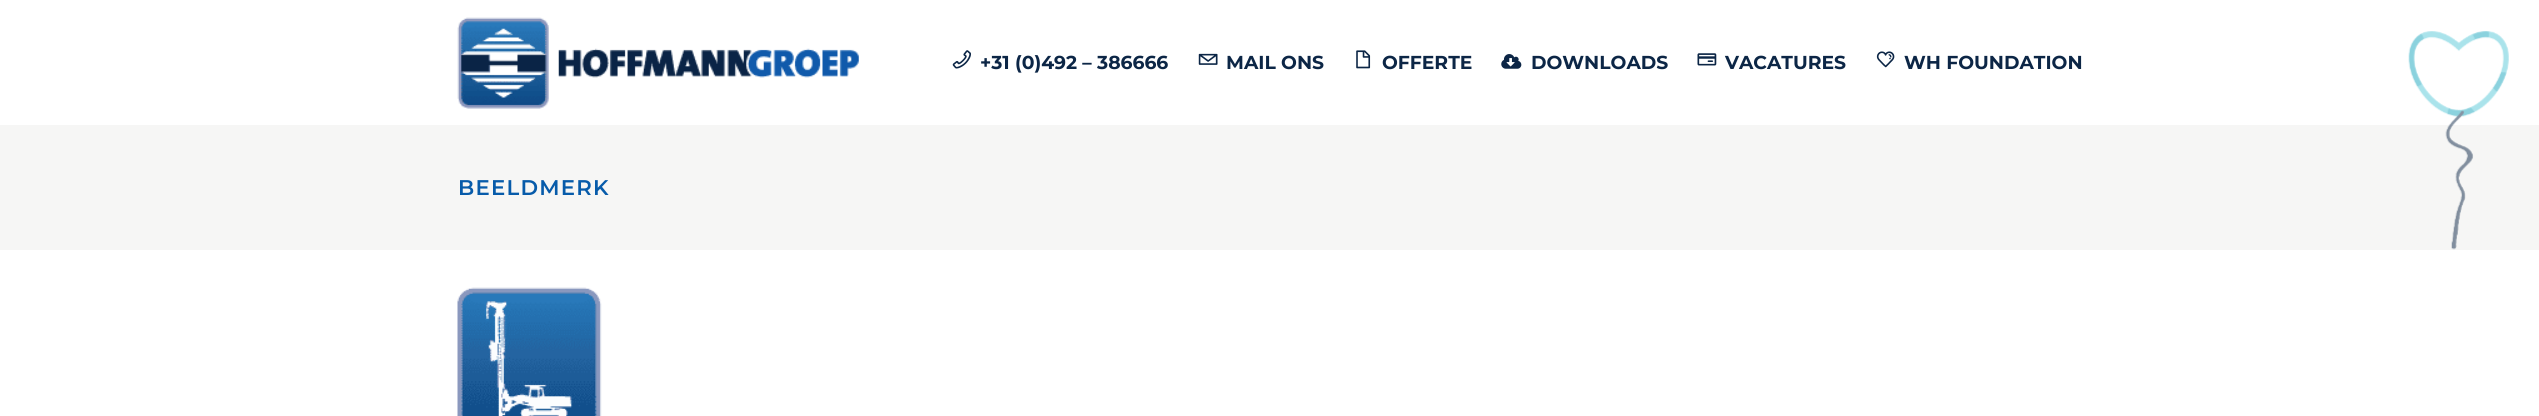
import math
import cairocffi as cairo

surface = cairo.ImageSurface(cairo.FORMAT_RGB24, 2539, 416)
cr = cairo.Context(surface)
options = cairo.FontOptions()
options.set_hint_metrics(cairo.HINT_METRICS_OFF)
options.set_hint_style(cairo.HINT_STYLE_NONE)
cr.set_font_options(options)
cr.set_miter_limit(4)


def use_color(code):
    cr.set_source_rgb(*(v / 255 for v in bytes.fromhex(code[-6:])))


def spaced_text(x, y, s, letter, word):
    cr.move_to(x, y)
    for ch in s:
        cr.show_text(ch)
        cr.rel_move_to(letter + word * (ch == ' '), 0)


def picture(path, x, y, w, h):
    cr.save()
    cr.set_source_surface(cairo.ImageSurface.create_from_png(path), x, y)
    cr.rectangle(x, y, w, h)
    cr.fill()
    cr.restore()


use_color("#ffffff")
cr.paint()
picture("img1.png", 457, 17, 402, 92)
picture("img2.png", 952, 50, 19, 19)
cr.select_font_face("Montserrat", cairo.FONT_SLANT_NORMAL, cairo.FONT_WEIGHT_BOLD)
cr.set_font_size(18.75)
use_color("#0c2646")
cr.move_to(980, 69)
cr.show_text("+31 (0)492 – 386666")
picture("img3.png", 1198, 53, 20, 12)
cr.move_to(1226, 69)
cr.show_text("MAIL ONS")
picture("img4.png", 1356, 50, 15, 19)
cr.move_to(1382, 69)
cr.show_text("OFFERTE")
picture("img5.png", 1501, 54, 21, 15)
cr.move_to(1531, 69)
cr.show_text("DOWNLOADS")
picture("img6.png", 1697, 53, 20, 13)
cr.move_to(1725, 69)
cr.show_text("VACATURES")
picture("img7.png", 1876, 51, 19, 17)
cr.move_to(1904, 69)
cr.show_text("WH FOUNDATION")
use_color("#f6f6f5")
cr.rectangle(0, 125, 2539, 125)
cr.fill()
picture("img8.png", 2408, 31, 101, 219)
cr.select_font_face("Montserrat SemiBold")
cr.set_font_size(21.25)
use_color("#075baa")
spaced_text(458, 195, "BEELDMERK", 1.25, 0)
picture("img9.png", 457, 287, 145, 129)
surface.write_to_png("result.png")
